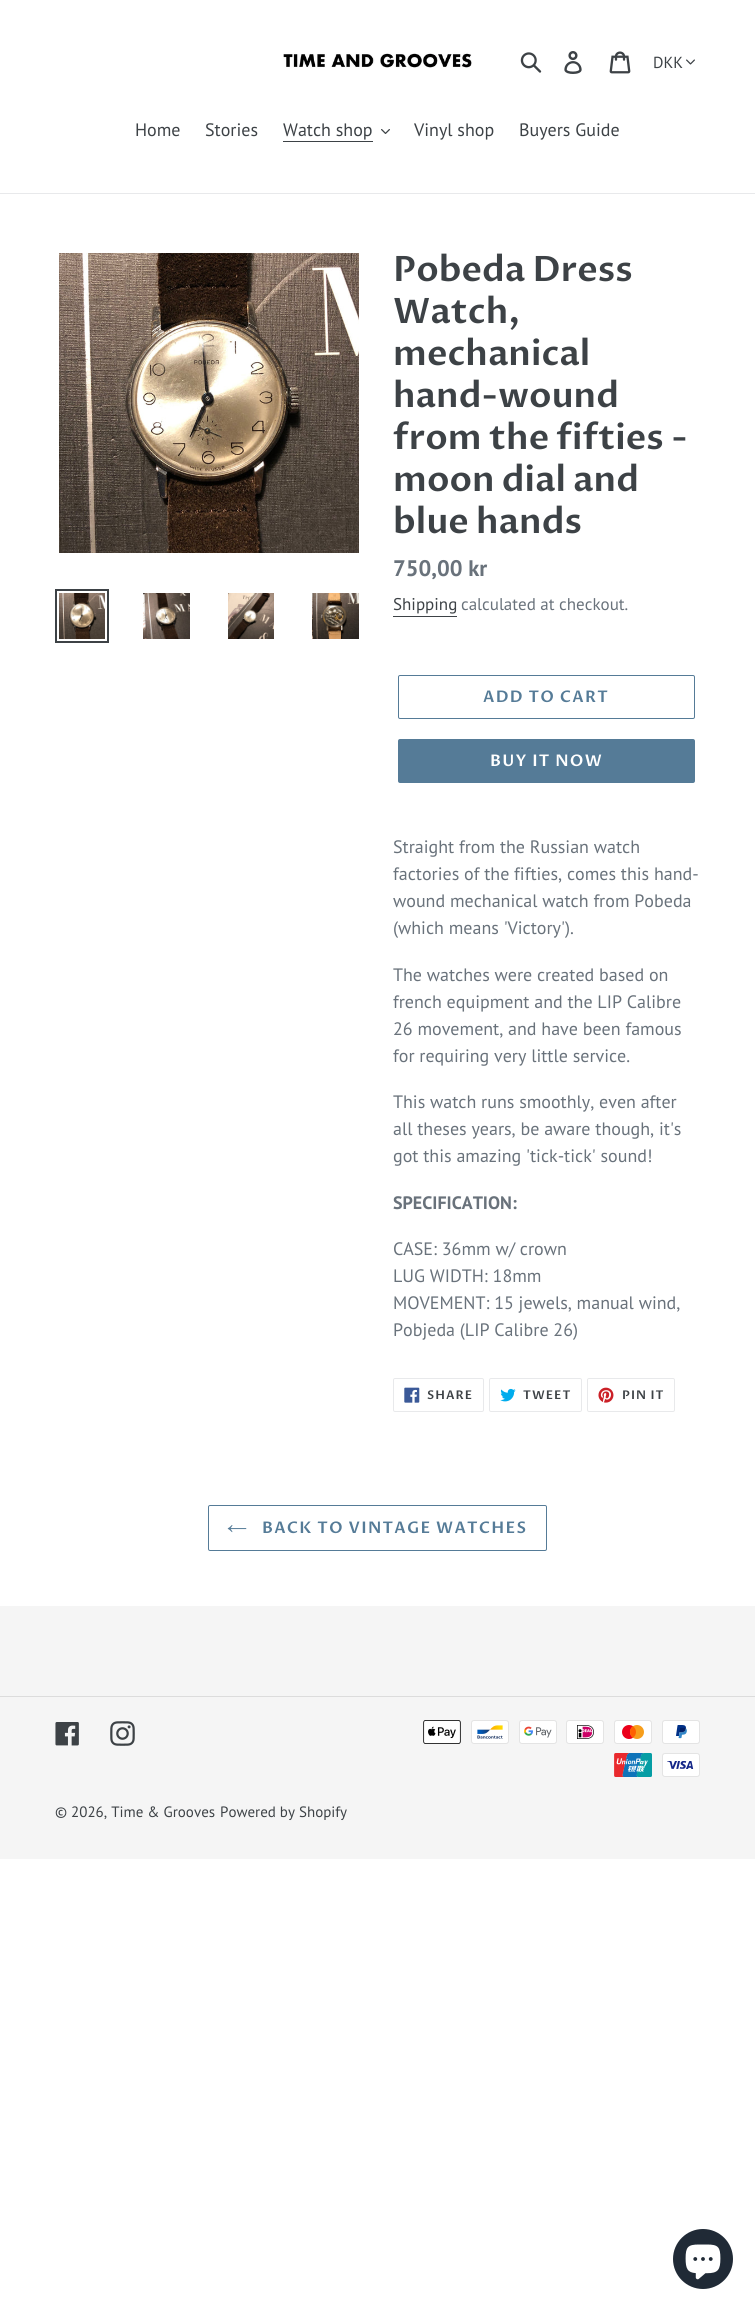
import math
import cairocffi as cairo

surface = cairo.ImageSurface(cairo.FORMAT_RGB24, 755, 2310)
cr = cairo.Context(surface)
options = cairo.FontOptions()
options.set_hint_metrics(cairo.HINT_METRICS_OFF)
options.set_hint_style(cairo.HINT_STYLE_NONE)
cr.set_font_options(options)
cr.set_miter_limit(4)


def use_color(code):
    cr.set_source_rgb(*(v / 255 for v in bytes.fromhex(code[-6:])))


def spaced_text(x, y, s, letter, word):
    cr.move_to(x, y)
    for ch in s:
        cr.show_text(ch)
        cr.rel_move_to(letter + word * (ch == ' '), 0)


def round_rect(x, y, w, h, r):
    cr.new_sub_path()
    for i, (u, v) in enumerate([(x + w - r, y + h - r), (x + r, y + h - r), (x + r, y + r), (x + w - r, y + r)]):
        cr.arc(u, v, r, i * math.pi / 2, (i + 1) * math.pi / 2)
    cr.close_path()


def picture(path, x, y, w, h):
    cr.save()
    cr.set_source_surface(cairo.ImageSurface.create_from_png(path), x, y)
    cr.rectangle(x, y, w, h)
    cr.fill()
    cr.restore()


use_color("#ffffff")
cr.paint()
picture("img1.png", 283, 52, 189, 16)
picture("img2.png", 520, 52, 22, 21)
picture("img3.png", 564, 51, 18, 23)
picture("img4.png", 609, 51, 22, 23)
cr.select_font_face("PT Sans")
cr.set_font_size(16)
use_color("#3d4246")
cr.move_to(653, 68)
cr.show_text("DKK")
picture("img5.png", 686, 59, 9, 6)
use_color("#e8e9eb")
cr.rectangle(0, 193, 755, 1)
cr.fill()
cr.set_font_size(18)
use_color("#3d4246")
cr.move_to(135, 136)
cr.show_text("Home")
cr.move_to(205, 136)
cr.show_text("Stories")
cr.move_to(283, 136)
cr.show_text("Watch shop")
cr.rectangle(283, 141, 90, 1)
cr.fill()
picture("img6.png", 381, 129, 9, 5)
cr.move_to(414, 136)
cr.show_text("Vinyl shop")
cr.move_to(519, 136)
cr.show_text("Buyers Guide")
picture("img7.png", 59, 253, 300, 300)
cr.rectangle(56, 590, 52, 52)
cr.stroke()
picture("img8.png", 59, 593, 46, 46)
picture("img9.png", 143, 593, 47, 46)
picture("img10.png", 228, 593, 46, 46)
picture("img11.png", 312, 593, 47, 46)
cr.select_font_face("Proza Libre SemiBold")
cr.set_font_size(35)
cr.move_to(393, 281)
cr.show_text("Pobeda Dress")
cr.move_to(393, 323)
cr.show_text("Watch,")
cr.move_to(393, 365)
cr.show_text("mechanical")
cr.move_to(393, 407)
cr.show_text("hand-wound")
cr.move_to(393, 449)
cr.show_text("from the fifties -")
cr.move_to(393, 491)
cr.show_text("moon dial and")
cr.move_to(393, 533)
cr.show_text("blue hands")
cr.select_font_face("PT Sans", cairo.FONT_SLANT_NORMAL, cairo.FONT_WEIGHT_BOLD)
cr.set_font_size(22.5)
use_color("#69727b")
cr.move_to(393, 576)
cr.show_text("750,00 kr")
cr.select_font_face("PT Sans")
cr.set_font_size(17)
use_color("#3d4246")
cr.move_to(393, 610)
cr.show_text("Shipping")
cr.rectangle(393, 616, 64, 1)
cr.fill()
use_color("#69727b")
cr.move_to(461, 610)
cr.show_text("calculated at checkout.")
round_rect(398.5, 675.5, 296, 43, 1.5)
use_color("#557b97")
cr.set_line_width(1)
cr.stroke()
cr.select_font_face("Proza Libre SemiBold")
cr.set_font_size(16)
spaced_text(483, 702, "ADD TO CART", 1.25, 0)
round_rect(398, 739, 297, 44, 2)
cr.fill()
use_color("#ffffff")
spaced_text(490, 766, "BUY IT NOW", 1.25, 0)
cr.select_font_face("PT Sans")
cr.set_font_size(18)
use_color("#69727b")
cr.move_to(393, 853)
cr.show_text("Straight from the Russian watch")
cr.move_to(393, 880)
cr.show_text("factories of the fifties, comes this hand-")
cr.move_to(393, 907)
cr.show_text("wound mechanical watch from Pobeda")
cr.move_to(393, 934)
cr.show_text("(which means 'Victory').")
cr.move_to(393, 981)
cr.show_text("The watches were created based on")
cr.move_to(393, 1008)
cr.show_text("french equipment and the LIP Calibre")
cr.move_to(393, 1035)
cr.show_text("26 movement, and have been famous")
cr.move_to(393, 1062)
cr.show_text("for requiring very little service.")
cr.move_to(393, 1108)
cr.show_text("This watch runs smoothly, even after")
cr.move_to(393, 1135)
cr.show_text("all theses years, be aware though, it's")
cr.move_to(393, 1162)
cr.show_text("got this amazing 'tick-tick' sound!")
cr.select_font_face("PT Sans", cairo.FONT_SLANT_NORMAL, cairo.FONT_WEIGHT_BOLD)
cr.move_to(393, 1209)
cr.show_text("SPECIFICATION:")
cr.select_font_face("PT Sans")
cr.move_to(393, 1255)
cr.show_text("CASE: 36mm w/ crown")
cr.move_to(393, 1282)
cr.show_text("LUG WIDTH: 18mm")
cr.move_to(393, 1309)
cr.show_text("MOVEMENT: 15 jewels, manual wind,")
cr.move_to(393, 1336)
cr.show_text("Pobjeda (LIP Calibre 26)")
round_rect(393.5, 1378.5, 90, 33, 1.5)
use_color("#e8e9eb")
cr.stroke()
picture("img12.png", 404, 1387, 16, 16)
cr.select_font_face("Proza Libre SemiBold")
cr.set_font_size(12)
use_color("#3d4246")
spaced_text(427, 1399, "SHARE", 1, 0)
round_rect(489.5, 1378.5, 92, 33, 1.5)
use_color("#e8e9eb")
cr.stroke()
picture("img13.png", 500, 1388, 16, 14)
use_color("#3d4246")
spaced_text(523, 1399, "TWEET", 1, 0)
round_rect(587.5, 1378.5, 87, 33, 1.5)
use_color("#e8e9eb")
cr.stroke()
picture("img14.png", 598, 1387, 16, 16)
use_color("#3d4246")
spaced_text(622, 1399, "PIN IT", 1, 0)
round_rect(208.5, 1505.5, 338, 45, 1.5)
use_color("#557b97")
cr.stroke()
picture("img15.png", 227, 1525, 20, 8)
cr.set_font_size(16)
spaced_text(262, 1533, "BACK TO VINTAGE WATCHES", 1.25, 0)
use_color("#f5f5f5")
cr.rectangle(0, 1606, 755, 253)
cr.fill()
use_color("#dcdcdc")
cr.rectangle(0, 1696, 755, 1)
cr.fill()
picture("img16.png", 55, 1722, 24, 24)
picture("img17.png", 110, 1721, 25, 25)
picture("img18.png", 423, 1720, 38, 24)
picture("img19.png", 471, 1720, 38, 24)
picture("img20.png", 519, 1720, 38, 24)
picture("img21.png", 566, 1720, 38, 24)
picture("img22.png", 614, 1720, 38, 24)
picture("img23.png", 662, 1720, 38, 24)
picture("img24.png", 614, 1753, 38, 24)
picture("img25.png", 662, 1753, 38, 24)
cr.select_font_face("PT Sans")
cr.set_font_size(15)
use_color("#3d4246")
cr.move_to(55, 1817)
cr.show_text("© 2026, Time & Grooves")
cr.move_to(220, 1817)
cr.show_text("Powered by Shopify")
use_color("#202a36")
cr.new_path()
cr.arc(703, 2259, 30, 0, 2 * math.pi)
cr.fill()
picture("img26.png", 685, 2244, 36, 36)
surface.write_to_png("result.png")
